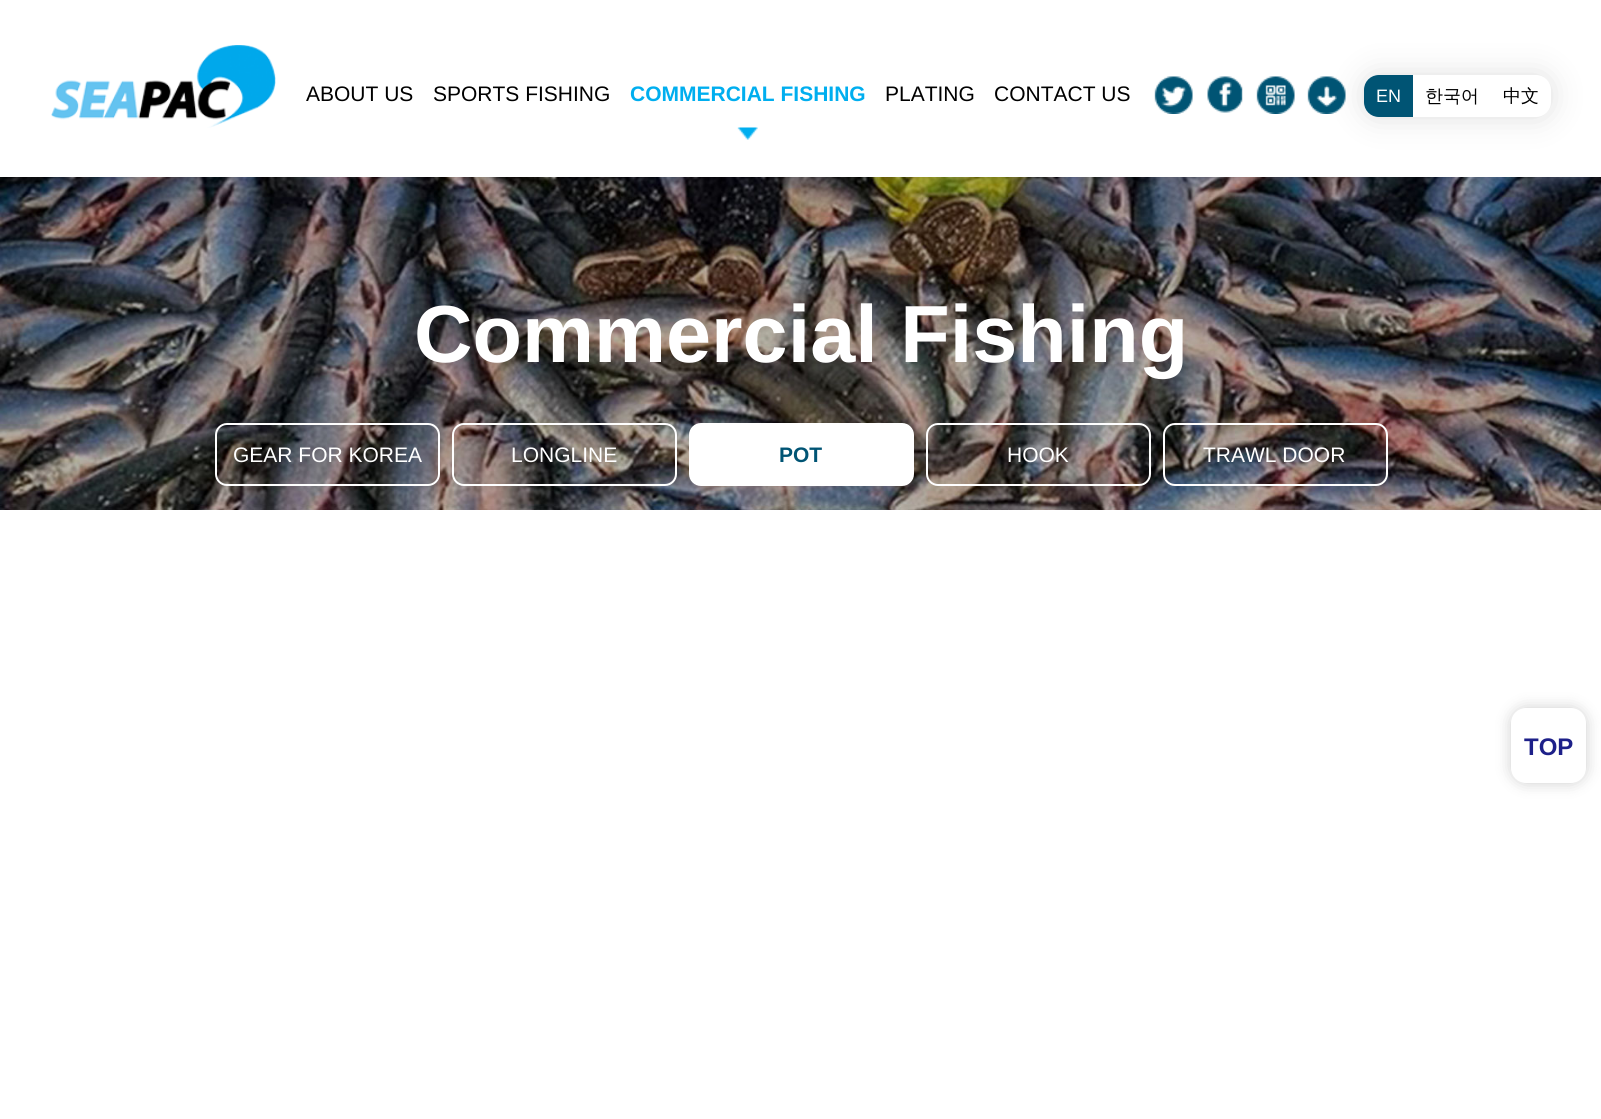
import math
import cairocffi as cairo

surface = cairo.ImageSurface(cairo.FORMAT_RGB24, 1601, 1119)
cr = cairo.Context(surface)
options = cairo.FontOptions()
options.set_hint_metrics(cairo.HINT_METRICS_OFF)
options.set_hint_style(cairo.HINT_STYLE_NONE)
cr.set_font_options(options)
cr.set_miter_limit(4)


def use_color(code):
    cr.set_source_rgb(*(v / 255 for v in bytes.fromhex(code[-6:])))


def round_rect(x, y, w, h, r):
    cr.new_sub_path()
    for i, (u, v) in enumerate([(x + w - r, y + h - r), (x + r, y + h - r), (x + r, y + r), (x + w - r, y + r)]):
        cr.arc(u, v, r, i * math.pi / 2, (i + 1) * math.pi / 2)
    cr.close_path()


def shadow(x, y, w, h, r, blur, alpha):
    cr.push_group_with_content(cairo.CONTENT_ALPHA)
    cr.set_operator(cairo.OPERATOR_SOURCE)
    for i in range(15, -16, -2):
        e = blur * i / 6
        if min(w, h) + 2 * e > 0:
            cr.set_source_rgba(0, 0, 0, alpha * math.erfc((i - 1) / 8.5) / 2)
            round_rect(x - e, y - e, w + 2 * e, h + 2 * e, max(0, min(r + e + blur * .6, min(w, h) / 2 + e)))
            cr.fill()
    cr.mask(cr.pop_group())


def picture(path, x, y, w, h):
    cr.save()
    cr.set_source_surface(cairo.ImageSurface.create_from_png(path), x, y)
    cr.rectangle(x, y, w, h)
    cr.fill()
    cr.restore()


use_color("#ffffff")
cr.paint()
picture("img1.png", 51, 45, 225, 83)
cr.select_font_face("Liberation Sans")
cr.set_font_size(21)
use_color("#000000")
cr.move_to(306, 101)
cr.show_text("ABOUT US")
cr.move_to(433, 101)
cr.show_text("SPORTS FISHING")
cr.select_font_face("Liberation Sans", cairo.FONT_SLANT_NORMAL, cairo.FONT_WEIGHT_BOLD)
use_color("#00aeef")
cr.move_to(630, 101)
cr.show_text("COMMERCIAL FISHING")
picture("img2.png", 737, 127, 21, 13)
cr.select_font_face("Liberation Sans")
use_color("#000000")
cr.move_to(885, 101)
cr.show_text("PLATING")
cr.move_to(994, 101)
cr.show_text("CONTACT US")
picture("img3.png", 1154, 76, 39, 38)
picture("img4.png", 1207, 76, 36, 37)
picture("img5.png", 1256, 76, 39, 38)
use_color("#dedede")
shadow(1364, 75, 187, 42, 15, 15, 1)
picture("img6.png", 1307, 76, 39, 38)
use_color("#ffffff")
round_rect(1364, 75, 187, 42, 15)
cr.fill()
use_color("#005474")
cr.new_path()
cr.move_to(1379, 75)
cr.line_to(1413, 75)
cr.line_to(1413, 117)
cr.line_to(1379, 117)
cr.curve_to(1370.5, 117, 1364, 110.5, 1364, 102)
cr.line_to(1364, 90)
cr.curve_to(1364, 81.5, 1370.5, 75, 1379, 75)
cr.close_path()
cr.fill()
cr.set_font_size(18)
use_color("#ffffff")
cr.move_to(1376, 102)
cr.show_text("EN")
cr.select_font_face("WenQuanYi Zen Hei Medium")
use_color("#000000")
cr.move_to(1425, 102)
cr.show_text("한국어")
cr.move_to(1503, 102)
cr.show_text("中文")
picture("img7.png", 0, 177, 1601, 333)
cr.select_font_face("Liberation Sans", cairo.FONT_SLANT_NORMAL, cairo.FONT_WEIGHT_BOLD)
cr.set_font_size(81)
use_color("#ffffff")
cr.move_to(414, 362)
cr.show_text("Commercial Fishing")
round_rect(216, 424, 223, 61, 11)
cr.stroke()
cr.select_font_face("Liberation Sans")
cr.set_font_size(21)
cr.move_to(233, 462)
cr.show_text("GEAR FOR KOREA")
round_rect(453, 424, 223, 61, 11)
cr.stroke()
cr.move_to(511, 462)
cr.show_text("LONGLINE")
round_rect(690, 424, 223, 61, 11)
cr.fill_preserve()
cr.stroke()
cr.select_font_face("Liberation Sans", cairo.FONT_SLANT_NORMAL, cairo.FONT_WEIGHT_BOLD)
use_color("#005474")
cr.move_to(779, 462)
cr.show_text("POT")
round_rect(927, 424, 223, 61, 11)
use_color("#ffffff")
cr.stroke()
cr.select_font_face("Liberation Sans")
cr.move_to(1007, 462)
cr.show_text("HOOK")
round_rect(1164, 424, 223, 61, 11)
cr.stroke()
cr.move_to(1203, 462)
cr.show_text("TRAWL DOOR")
use_color("#000000")
shadow(1511, 708, 75, 75, 15, 7.5, 0.2)
use_color("#ffffff")
round_rect(1511, 708, 75, 75, 15)
cr.fill()
cr.select_font_face("Liberation Sans", cairo.FONT_SLANT_NORMAL, cairo.FONT_WEIGHT_BOLD)
cr.set_font_size(24)
use_color("#1d2089")
cr.move_to(1524, 755)
cr.show_text("TOP")
surface.write_to_png("result.png")
